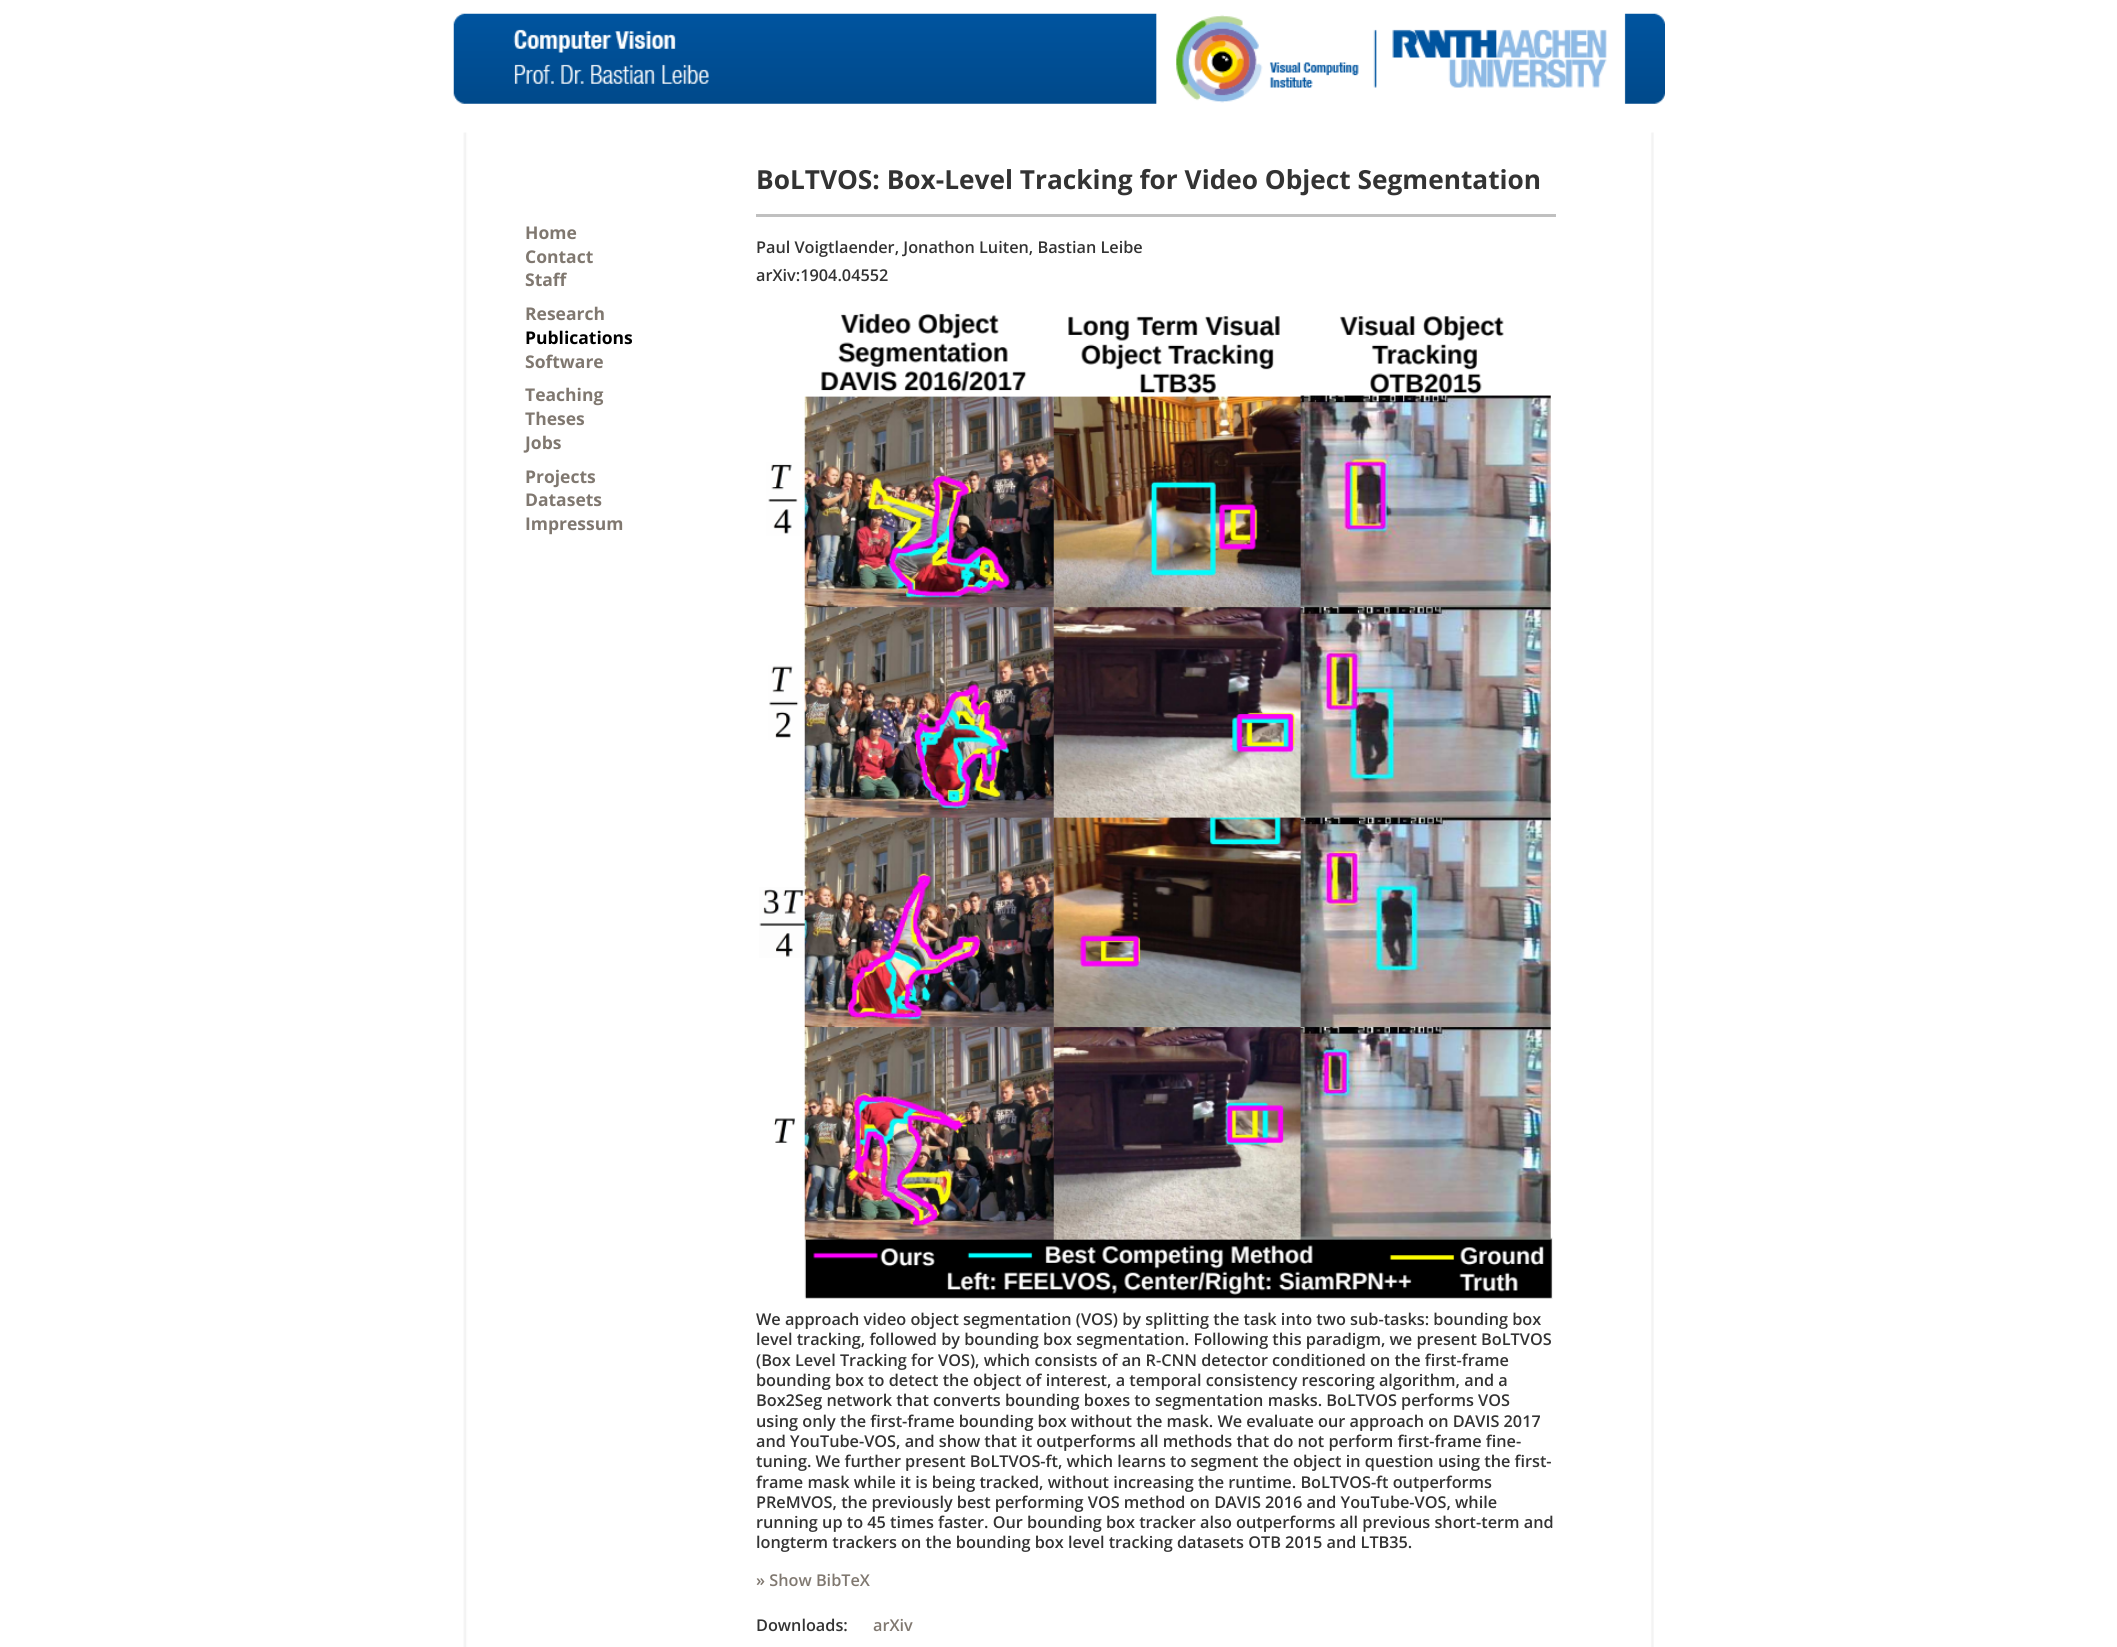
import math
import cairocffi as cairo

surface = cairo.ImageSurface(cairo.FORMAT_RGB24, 2117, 1647)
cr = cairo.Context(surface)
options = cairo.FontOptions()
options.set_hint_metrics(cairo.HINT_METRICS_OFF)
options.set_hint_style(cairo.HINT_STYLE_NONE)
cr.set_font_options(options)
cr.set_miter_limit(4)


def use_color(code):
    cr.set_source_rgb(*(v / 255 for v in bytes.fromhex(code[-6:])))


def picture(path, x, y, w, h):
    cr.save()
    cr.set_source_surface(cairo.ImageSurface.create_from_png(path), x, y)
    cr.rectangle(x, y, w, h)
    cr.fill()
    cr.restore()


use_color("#ffffff")
cr.paint()
picture("img1.png", 463, 132, 1191, 1515)
picture("img2.png", 453, 0, 1212, 133)
cr.select_font_face("Open Sans", cairo.FONT_SLANT_NORMAL, cairo.FONT_WEIGHT_BOLD)
cr.set_font_size(17.5)
use_color("#807870")
cr.move_to(525, 239)
cr.show_text("Home")
cr.move_to(525, 263)
cr.show_text("Contact")
cr.move_to(525, 286)
cr.show_text("Staff")
cr.move_to(525, 320)
cr.show_text("Research")
use_color("#000000")
cr.move_to(525, 344)
cr.show_text("Publications")
use_color("#807870")
cr.move_to(525, 368)
cr.show_text("Software")
cr.move_to(525, 401)
cr.show_text("Teaching")
cr.move_to(525, 425)
cr.show_text("Theses")
cr.move_to(525, 449)
cr.show_text("Jobs")
cr.move_to(525, 483)
cr.show_text("Projects")
cr.move_to(525, 506)
cr.show_text("Datasets")
cr.move_to(525, 530)
cr.show_text("Impressum")
cr.set_font_size(26.25)
use_color("#333333")
cr.move_to(756, 189)
cr.show_text("BoLTVOS: Box-Level Tracking for Video Object Segmentation")
use_color("#c0c0c0")
cr.rectangle(756, 214, 800, 3)
cr.fill()
cr.select_font_face("Open Sans SemiBold")
cr.set_font_size(16.25)
use_color("#333333")
cr.move_to(756, 253)
cr.show_text("Paul Voigtlaender, Jonathon Luiten, Bastian Leibe")
cr.move_to(756, 281)
cr.show_text("arXiv:1904.04552")
picture("img3.png", 759, 313, 794, 986)
cr.move_to(756, 1325)
cr.show_text("We approach video object segmentation (VOS) by splitting the task into two sub-tasks: bounding box")
cr.move_to(756, 1345)
cr.show_text("level tracking, followed by bounding box segmentation. Following this paradigm, we present BoLTVOS")
cr.move_to(756, 1366)
cr.show_text("(Box Level Tracking for VOS), which consists of an R-CNN detector conditioned on the first-frame")
cr.move_to(756, 1386)
cr.show_text("bounding box to detect the object of interest, a temporal consistency rescoring algorithm, and a")
cr.move_to(756, 1406)
cr.show_text("Box2Seg network that converts bounding boxes to segmentation masks. BoLTVOS performs VOS")
cr.move_to(756, 1427)
cr.show_text("using only the first-frame bounding box without the mask. We evaluate our approach on DAVIS 2017")
cr.move_to(756, 1447)
cr.show_text("and YouTube-VOS, and show that it outperforms all methods that do not perform first-frame fine-")
cr.move_to(756, 1467)
cr.show_text("tuning. We further present BoLTVOS-ft, which learns to segment the object in question using the first-")
cr.move_to(756, 1488)
cr.show_text("frame mask while it is being tracked, without increasing the runtime. BoLTVOS-ft outperforms")
cr.move_to(756, 1508)
cr.show_text("PReMVOS, the previously best performing VOS method on DAVIS 2016 and YouTube-VOS, while")
cr.move_to(756, 1528)
cr.show_text("running up to 45 times faster. Our bounding box tracker also outperforms all previous short-term and")
cr.move_to(756, 1548)
cr.show_text("longterm trackers on the bounding box level tracking datasets OTB 2015 and LTB35.")
use_color("#807870")
cr.move_to(756, 1586)
cr.show_text("» Show BibTeX")
use_color("#333333")
cr.move_to(756, 1631)
cr.show_text("Downloads:")
use_color("#807870")
cr.move_to(873, 1631)
cr.show_text("arXiv")
surface.write_to_png("result.png")
